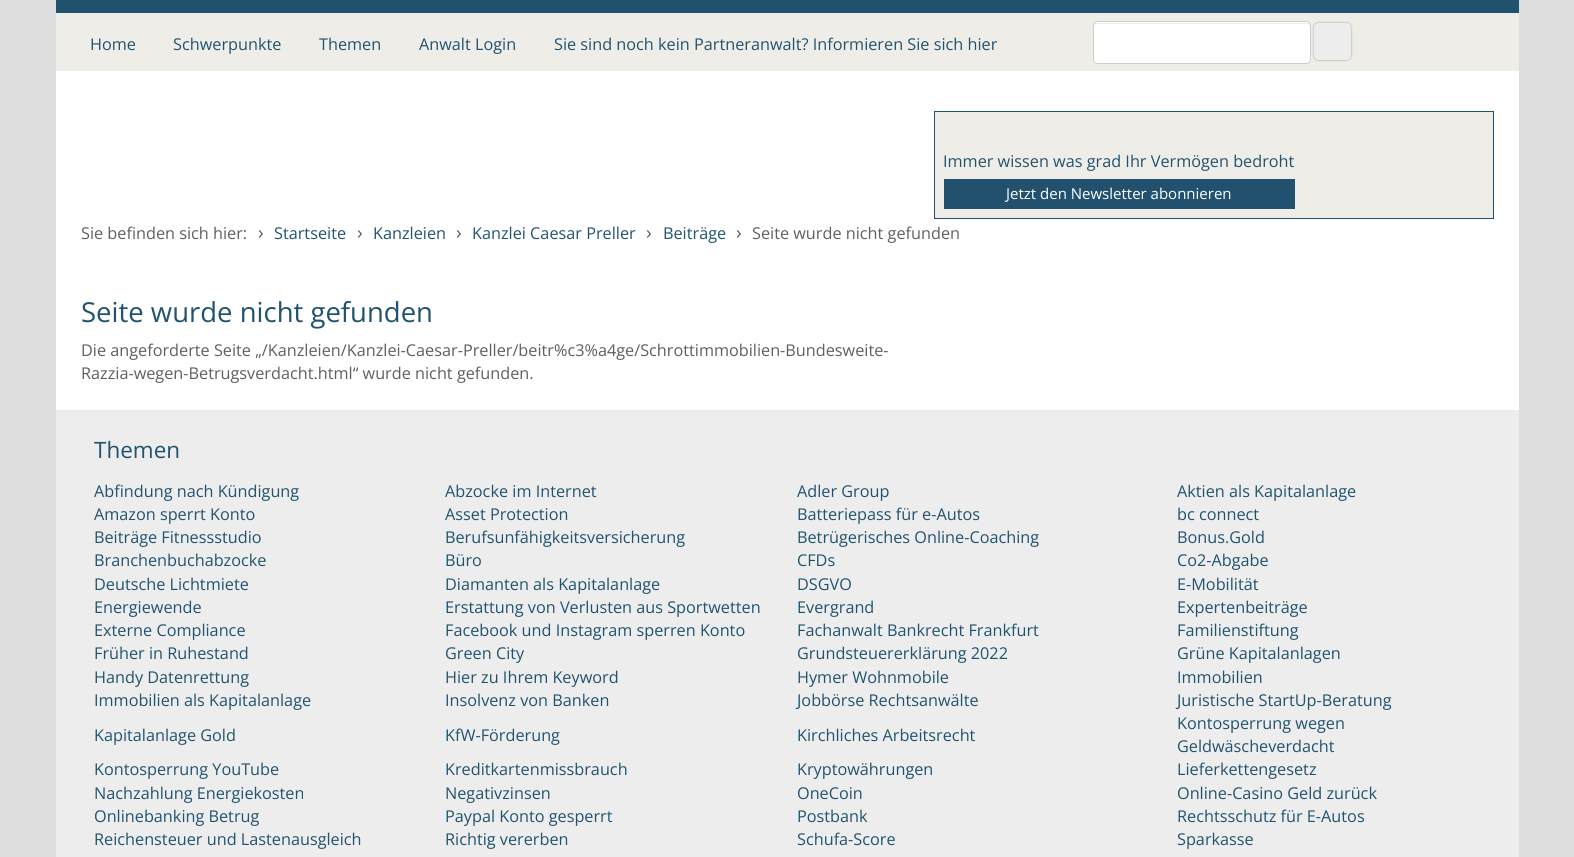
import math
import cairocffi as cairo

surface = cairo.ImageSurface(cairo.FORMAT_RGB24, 1574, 857)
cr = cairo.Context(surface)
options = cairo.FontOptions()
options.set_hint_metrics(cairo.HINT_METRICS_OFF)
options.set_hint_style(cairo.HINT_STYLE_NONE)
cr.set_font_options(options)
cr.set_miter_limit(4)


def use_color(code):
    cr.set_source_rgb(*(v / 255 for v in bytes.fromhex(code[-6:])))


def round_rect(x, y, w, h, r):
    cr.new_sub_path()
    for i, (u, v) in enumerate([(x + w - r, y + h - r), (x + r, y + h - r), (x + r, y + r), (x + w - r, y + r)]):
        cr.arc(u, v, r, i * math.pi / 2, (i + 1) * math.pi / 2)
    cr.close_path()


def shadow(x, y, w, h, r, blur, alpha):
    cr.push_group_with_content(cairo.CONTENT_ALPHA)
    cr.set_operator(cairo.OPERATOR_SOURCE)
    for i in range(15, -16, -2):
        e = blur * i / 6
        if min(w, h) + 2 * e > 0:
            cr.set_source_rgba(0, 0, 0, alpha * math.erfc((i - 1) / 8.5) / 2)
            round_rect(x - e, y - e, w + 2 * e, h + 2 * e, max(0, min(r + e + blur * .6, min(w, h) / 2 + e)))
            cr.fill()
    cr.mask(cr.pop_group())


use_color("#dddddd")
cr.paint()
use_color("#20516f")
cr.rectangle(56, 0, 1463, 13)
cr.fill()
use_color("#efede8")
cr.rectangle(56, 13, 1463, 58)
cr.fill()
cr.select_font_face("Open Sans")
cr.set_font_size(16.25)
use_color("#21536f")
cr.move_to(90, 50)
cr.show_text("Home")
cr.move_to(173, 50)
cr.show_text("Schwerpunkte")
cr.move_to(319, 50)
cr.show_text("Themen")
cr.move_to(419, 50)
cr.show_text("Anwalt Login")
cr.move_to(554, 50)
cr.show_text("Sie sind noch kein Partneranwalt? Informieren Sie sich hier")
use_color("#ffffff")
round_rect(1093, 21, 218, 43, 5)
cr.fill()
use_color("#ececec")
cr.new_path()
cr.move_to(1098, 24)
cr.line_to(1306, 24)
cr.curve_to(1308, 24, 1310, 25, 1310, 28)
cr.curve_to(1310, 25, 1309, 23, 1306, 23)
cr.line_to(1096, 23)
cr.curve_to(1094, 24, 1094, 26, 1094, 28)
cr.curve_to(1094, 25, 1095, 24, 1098, 24)
cr.close_path()
cr.fill()
round_rect(1093.5, 21.5, 217, 42, 4.5)
use_color("#cccccc")
cr.set_line_width(1)
cr.stroke()
use_color("#999999")
shadow(1314, 23, 37, 37, 4, 1, 1)
use_color("#ededed")
round_rect(1314, 23, 37, 37, 4)
cr.fill()
use_color("#ffffff")
cr.rectangle(56, 71, 1463, 339)
cr.fill()
use_color("#efede8")
cr.rectangle(934.5, 111.5, 559, 107)
cr.fill_preserve()
use_color("#20526f")
cr.stroke()
use_color("#21536f")
cr.move_to(943, 167)
cr.show_text("Immer wissen was grad Ihr Vermögen bedroht")
use_color("#21516f")
cr.rectangle(944, 179, 351, 30)
cr.fill()
cr.set_font_size(15)
use_color("#ffffff")
cr.move_to(1006, 199)
cr.show_text("Jetzt den Newsletter abonnieren")
cr.set_font_size(16.25)
use_color("#605f5d")
cr.move_to(81, 239)
cr.show_text("Sie befinden sich hier:")
cr.set_font_size(19)
cr.move_to(258, 239)
cr.show_text("›")
cr.set_font_size(16.25)
use_color("#21536f")
cr.move_to(274, 239)
cr.show_text("Startseite")
cr.set_font_size(19)
use_color("#605f5d")
cr.move_to(357, 239)
cr.show_text("›")
cr.set_font_size(16.25)
use_color("#21536f")
cr.move_to(373, 239)
cr.show_text("Kanzleien")
cr.set_font_size(19)
use_color("#605f5d")
cr.move_to(456, 239)
cr.show_text("›")
cr.set_font_size(16.25)
use_color("#21536f")
cr.move_to(472, 239)
cr.show_text("Kanzlei Caesar Preller")
cr.set_font_size(19)
use_color("#605f5d")
cr.move_to(646, 239)
cr.show_text("›")
cr.set_font_size(16.25)
use_color("#21536f")
cr.move_to(663, 239)
cr.show_text("Beiträge")
cr.set_font_size(19)
use_color("#605f5d")
cr.move_to(736, 239)
cr.show_text("›")
cr.set_font_size(16.25)
cr.move_to(752, 239)
cr.show_text("Seite wurde nicht gefunden")
cr.set_font_size(27.5)
use_color("#21536f")
cr.move_to(81, 322)
cr.show_text("Seite wurde nicht gefunden")
cr.set_font_size(16.25)
use_color("#605f5d")
cr.move_to(81, 356)
cr.show_text("Die angeforderte Seite „/Kanzleien/Kanzlei-Caesar-Preller/beitr%c3%a4ge/Schrottimmobilien-Bundesweite-")
cr.move_to(81, 379)
cr.show_text("Razzia-wegen-Betrugsverdacht.html“ wurde nicht gefunden.")
use_color("#ededed")
cr.rectangle(56, 410, 1463, 447)
cr.fill()
cr.set_font_size(22.5)
use_color("#21536f")
cr.move_to(94, 458)
cr.show_text("Themen")
cr.set_font_size(16.25)
cr.move_to(94, 497)
cr.show_text("Abfindung nach Kündigung")
cr.move_to(445, 497)
cr.show_text("Abzocke im Internet")
cr.move_to(797, 497)
cr.show_text("Adler Group")
cr.move_to(1177, 497)
cr.show_text("Aktien als Kapitalanlage")
cr.move_to(94, 520)
cr.show_text("Amazon sperrt Konto")
cr.move_to(445, 520)
cr.show_text("Asset Protection")
cr.move_to(797, 520)
cr.show_text("Batteriepass für e-Autos")
cr.move_to(1177, 520)
cr.show_text("bc connect")
cr.move_to(94, 543)
cr.show_text("Beiträge Fitnessstudio")
cr.move_to(445, 543)
cr.show_text("Berufsunfähigkeitsversicherung")
cr.move_to(797, 543)
cr.show_text("Betrügerisches Online-Coaching")
cr.move_to(1177, 543)
cr.show_text("Bonus.Gold")
cr.move_to(94, 566)
cr.show_text("Branchenbuchabzocke")
cr.move_to(445, 566)
cr.show_text("Büro")
cr.move_to(797, 566)
cr.show_text("CFDs")
cr.move_to(1177, 566)
cr.show_text("Co2-Abgabe")
cr.move_to(94, 590)
cr.show_text("Deutsche Lichtmiete")
cr.move_to(445, 590)
cr.show_text("Diamanten als Kapitalanlage")
cr.move_to(797, 590)
cr.show_text("DSGVO")
cr.move_to(1177, 590)
cr.show_text("E-Mobilität")
cr.move_to(94, 613)
cr.show_text("Energiewende")
cr.move_to(445, 613)
cr.show_text("Erstattung von Verlusten aus Sportwetten")
cr.move_to(797, 613)
cr.show_text("Evergrand")
cr.move_to(1177, 613)
cr.show_text("Expertenbeiträge")
cr.move_to(94, 636)
cr.show_text("Externe Compliance")
cr.move_to(445, 636)
cr.show_text("Facebook und Instagram sperren Konto")
cr.move_to(797, 636)
cr.show_text("Fachanwalt Bankrecht Frankfurt")
cr.move_to(1177, 636)
cr.show_text("Familienstiftung")
cr.move_to(94, 659)
cr.show_text("Früher in Ruhestand")
cr.move_to(445, 659)
cr.show_text("Green City")
cr.move_to(797, 659)
cr.show_text("Grundsteuererklärung 2022")
cr.move_to(1177, 659)
cr.show_text("Grüne Kapitalanlagen")
cr.move_to(94, 683)
cr.show_text("Handy Datenrettung")
cr.move_to(445, 683)
cr.show_text("Hier zu Ihrem Keyword")
cr.move_to(797, 683)
cr.show_text("Hymer Wohnmobile")
cr.move_to(1177, 683)
cr.show_text("Immobilien")
cr.move_to(94, 706)
cr.show_text("Immobilien als Kapitalanlage")
cr.move_to(445, 706)
cr.show_text("Insolvenz von Banken")
cr.move_to(797, 706)
cr.show_text("Jobbörse Rechtsanwälte")
cr.move_to(1177, 706)
cr.show_text("Juristische StartUp-Beratung")
cr.move_to(94, 741)
cr.show_text("Kapitalanlage Gold")
cr.move_to(445, 741)
cr.show_text("KfW-Förderung")
cr.move_to(797, 741)
cr.show_text("Kirchliches Arbeitsrecht")
cr.move_to(1177, 729)
cr.show_text("Kontosperrung wegen")
cr.move_to(1177, 752)
cr.show_text("Geldwäscheverdacht")
cr.move_to(94, 775)
cr.show_text("Kontosperrung YouTube")
cr.move_to(445, 775)
cr.show_text("Kreditkartenmissbrauch")
cr.move_to(797, 775)
cr.show_text("Kryptowährungen")
cr.move_to(1177, 775)
cr.show_text("Lieferkettengesetz")
cr.move_to(94, 799)
cr.show_text("Nachzahlung Energiekosten")
cr.move_to(445, 799)
cr.show_text("Negativzinsen")
cr.move_to(797, 799)
cr.show_text("OneCoin")
cr.move_to(1177, 799)
cr.show_text("Online-Casino Geld zurück")
cr.move_to(94, 822)
cr.show_text("Onlinebanking Betrug")
cr.move_to(445, 822)
cr.show_text("Paypal Konto gesperrt")
cr.move_to(797, 822)
cr.show_text("Postbank")
cr.move_to(1177, 822)
cr.show_text("Rechtsschutz für E-Autos")
cr.move_to(94, 845)
cr.show_text("Reichensteuer und Lastenausgleich")
cr.move_to(445, 845)
cr.show_text("Richtig vererben")
cr.move_to(797, 845)
cr.show_text("Schufa-Score")
cr.move_to(1177, 845)
cr.show_text("Sparkasse")
surface.write_to_png("result.png")
